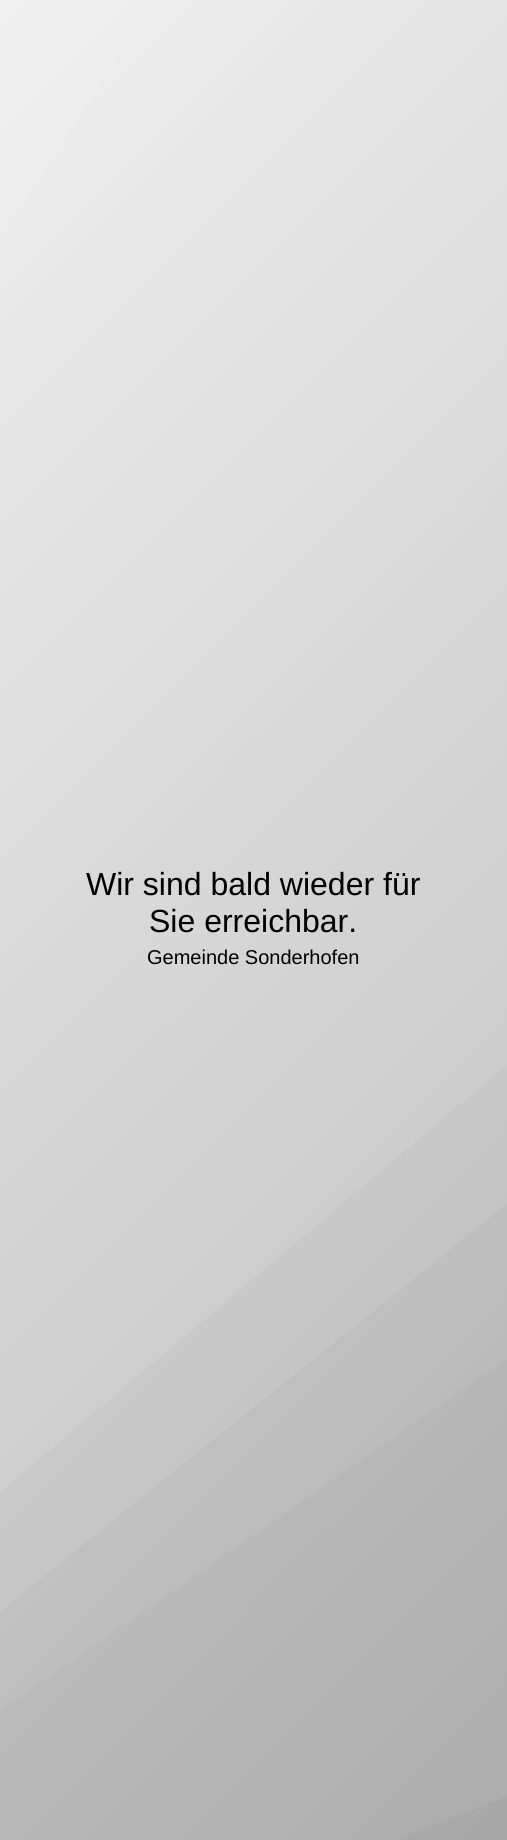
import math
import cairocffi as cairo

surface = cairo.ImageSurface(cairo.FORMAT_RGB24, 507, 1840)
cr = cairo.Context(surface)
options = cairo.FontOptions()
options.set_hint_metrics(cairo.HINT_METRICS_OFF)
options.set_hint_style(cairo.HINT_STYLE_NONE)
cr.set_font_options(options)
cr.set_miter_limit(4)


def use_color(code):
    cr.set_source_rgb(*(v / 255 for v in bytes.fromhex(code[-6:])))


def picture(path, x, y, w, h):
    cr.save()
    cr.set_source_surface(cairo.ImageSurface.create_from_png(path), x, y)
    cr.rectangle(x, y, w, h)
    cr.fill()
    cr.restore()


use_color("#ffffff")
cr.paint()
picture("img1.png", 0, 0, 507, 1840)
cr.select_font_face("Liberation Sans")
cr.set_font_size(32)
use_color("#000000")
cr.move_to(86, 895)
cr.show_text("Wir sind bald wieder für")
cr.move_to(149, 932)
cr.show_text("Sie erreichbar.")
cr.set_font_size(20)
cr.move_to(147, 964)
cr.show_text("Gemeinde Sonderhofen")
surface.write_to_png("result.png")
